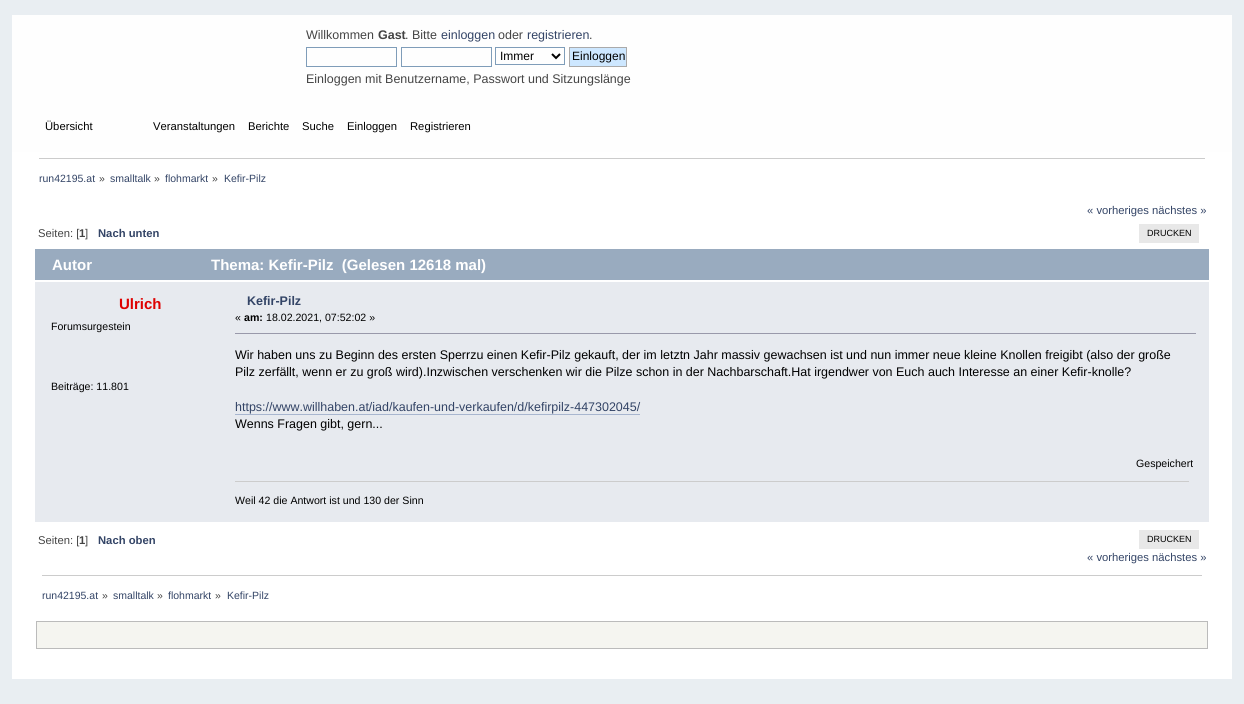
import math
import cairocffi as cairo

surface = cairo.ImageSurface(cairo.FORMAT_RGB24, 1244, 704)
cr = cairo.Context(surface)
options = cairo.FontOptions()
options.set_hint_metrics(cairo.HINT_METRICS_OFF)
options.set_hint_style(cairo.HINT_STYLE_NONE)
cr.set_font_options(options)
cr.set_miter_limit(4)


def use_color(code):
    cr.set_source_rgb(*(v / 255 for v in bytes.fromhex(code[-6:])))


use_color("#e9eef2")
cr.paint()
use_color("#fefefe")
cr.rectangle(12, 15, 1220, 137)
cr.fill()
cr.select_font_face("Liberation Sans")
cr.set_font_size(12.48)
use_color("#444444")
cr.move_to(306, 39)
cr.show_text("Willkommen")
cr.select_font_face("Liberation Sans", cairo.FONT_SLANT_NORMAL, cairo.FONT_WEIGHT_BOLD)
cr.move_to(378, 39)
cr.show_text("Gast")
cr.select_font_face("Liberation Sans")
cr.move_to(405, 39)
cr.show_text(". Bitte")
use_color("#334466")
cr.move_to(441, 39)
cr.show_text("einloggen")
use_color("#444444")
cr.move_to(498, 39)
cr.show_text("oder")
use_color("#334466")
cr.move_to(527, 39)
cr.show_text("registrieren")
use_color("#444444")
cr.move_to(589, 39)
cr.show_text(".")
cr.rectangle(306.5, 47.5, 90, 19)
use_color("#7f9db9")
cr.set_line_width(1)
cr.stroke()
cr.rectangle(401.5, 47.5, 90, 19)
cr.stroke()
cr.rectangle(495.5, 47.5, 69, 17)
cr.stroke()
cr.new_path()
cr.move_to(552, 54)
cr.line_to(556, 58)
cr.line_to(560, 54)
use_color("#000000")
cr.set_line_width(2)
cr.stroke()
cr.set_font_size(12)
cr.move_to(500, 60)
cr.show_text("Immer")
use_color("#cde7ff")
cr.rectangle(569.5, 47.5, 57, 19)
cr.fill_preserve()
use_color("#aaaaaa")
cr.set_line_width(1)
cr.stroke()
use_color("#000000")
cr.move_to(572, 60)
cr.show_text("Einloggen")
cr.set_font_size(12.48)
use_color("#444444")
cr.move_to(306, 83)
cr.show_text("Einloggen mit Benutzername, Passwort und Sitzungslänge")
cr.set_font_size(11.25)
use_color("#000000")
cr.move_to(45, 130)
cr.show_text("Übersicht")
cr.move_to(153, 130)
cr.show_text("Veranstaltungen")
cr.move_to(248, 130)
cr.show_text("Berichte")
cr.move_to(302, 130)
cr.show_text("Suche")
cr.move_to(347, 130)
cr.show_text("Einloggen")
cr.move_to(410, 130)
cr.show_text("Registrieren")
use_color("#ffffff")
cr.rectangle(12, 152, 1220, 527)
cr.fill()
use_color("#cccccc")
cr.rectangle(39, 158, 1166, 1)
cr.fill()
cr.set_font_size(10.5)
use_color("#334466")
cr.move_to(39, 182)
cr.show_text("run42195.at")
use_color("#444444")
cr.move_to(99, 182)
cr.show_text("»")
use_color("#334466")
cr.move_to(110, 182)
cr.show_text("smalltalk")
use_color("#444444")
cr.move_to(154, 182)
cr.show_text("»")
use_color("#334466")
cr.move_to(165, 182)
cr.show_text("flohmarkt")
use_color("#444444")
cr.move_to(212, 182)
cr.show_text("»")
use_color("#334466")
cr.move_to(224, 182)
cr.show_text("Kefir-Pilz")
cr.set_font_size(11.25)
cr.move_to(1087, 214)
cr.show_text("« vorheriges nächstes »")
use_color("#444444")
cr.move_to(38, 237)
cr.show_text("Seiten: [")
cr.select_font_face("Liberation Sans", cairo.FONT_SLANT_NORMAL, cairo.FONT_WEIGHT_BOLD)
cr.move_to(79, 237)
cr.show_text("1")
cr.select_font_face("Liberation Sans")
cr.move_to(85, 237)
cr.show_text("]")
cr.select_font_face("Liberation Sans", cairo.FONT_SLANT_NORMAL, cairo.FONT_WEIGHT_BOLD)
use_color("#334466")
cr.move_to(98, 237)
cr.show_text("Nach unten")
use_color("#e8e8e8")
cr.rectangle(1139, 224, 60, 19)
cr.fill()
cr.select_font_face("Liberation Sans")
cr.set_font_size(9)
use_color("#000000")
cr.move_to(1147, 236)
cr.show_text("DRUCKEN")
use_color("#99abbf")
cr.rectangle(35, 249, 1174, 31)
cr.fill()
cr.select_font_face("Liberation Sans", cairo.FONT_SLANT_NORMAL, cairo.FONT_WEIGHT_BOLD)
cr.set_font_size(15)
use_color("#ffffff")
cr.move_to(52, 270)
cr.show_text("Autor")
cr.move_to(211, 270)
cr.show_text("Thema: Kefir-Pilz  (Gelesen 12618 mal)")
use_color("#e7eaef")
cr.rectangle(35, 282, 1174, 240)
cr.fill()
use_color("#de0000")
cr.move_to(119, 309)
cr.show_text("Ulrich")
cr.select_font_face("Liberation Sans")
cr.set_font_size(10.6)
use_color("#000000")
cr.move_to(51, 330)
cr.show_text("Forumsurgestein")
cr.move_to(51, 390)
cr.show_text("Beiträge: 11.801")
cr.select_font_face("Liberation Sans", cairo.FONT_SLANT_NORMAL, cairo.FONT_WEIGHT_BOLD)
cr.set_font_size(12.48)
use_color("#334466")
cr.move_to(247, 305)
cr.show_text("Kefir-Pilz")
cr.select_font_face("Liberation Sans")
cr.set_font_size(10.6)
use_color("#000000")
cr.move_to(235, 321)
cr.show_text("«")
cr.select_font_face("Liberation Sans", cairo.FONT_SLANT_NORMAL, cairo.FONT_WEIGHT_BOLD)
cr.move_to(244, 321)
cr.show_text("am:")
cr.select_font_face("Liberation Sans")
cr.move_to(266, 321)
cr.show_text("18.02.2021, 07:52:02 »")
use_color("#9999aa")
cr.rectangle(235, 333, 961, 1)
cr.fill()
cr.set_font_size(12.48)
use_color("#000000")
cr.move_to(235, 359)
cr.show_text("Wir haben uns zu Beginn des ersten Sperrzu einen Kefir-Pilz gekauft, der im letztn Jahr massiv gewachsen ist und nun immer neue kleine Knollen freigibt (also der große")
cr.move_to(235, 376)
cr.show_text("Pilz zerfällt, wenn er zu groß wird).Inzwischen verschenken wir die Pilze schon in der Nachbarschaft.Hat irgendwer von Euch auch Interesse an einer Kefir-knolle?")
use_color("#334466")
cr.move_to(235, 411)
cr.show_text("https://www.willhaben.at/iad/kaufen-und-verkaufen/d/kefirpilz-447302045/")
use_color("#a8b6cf")
cr.rectangle(235, 414, 405, 1)
cr.fill()
use_color("#000000")
cr.move_to(235, 428)
cr.show_text("Wenns Fragen gibt, gern...")
cr.set_font_size(10.6)
cr.move_to(1136, 467)
cr.show_text("Gespeichert")
use_color("#cccccc")
cr.rectangle(235, 481, 954, 1)
cr.fill()
use_color("#000000")
cr.move_to(235, 504)
cr.show_text("Weil 42 die Antwort ist und 130 der Sinn")
cr.set_font_size(11.25)
use_color("#444444")
cr.move_to(38, 544)
cr.show_text("Seiten: [")
cr.select_font_face("Liberation Sans", cairo.FONT_SLANT_NORMAL, cairo.FONT_WEIGHT_BOLD)
cr.move_to(79, 544)
cr.show_text("1")
cr.select_font_face("Liberation Sans")
cr.move_to(85, 544)
cr.show_text("]")
cr.select_font_face("Liberation Sans", cairo.FONT_SLANT_NORMAL, cairo.FONT_WEIGHT_BOLD)
use_color("#334466")
cr.move_to(98, 544)
cr.show_text("Nach oben")
use_color("#e8e8e8")
cr.rectangle(1139, 530, 60, 19)
cr.fill()
cr.select_font_face("Liberation Sans")
cr.set_font_size(9)
use_color("#000000")
cr.move_to(1147, 542)
cr.show_text("DRUCKEN")
cr.set_font_size(11.25)
use_color("#334466")
cr.move_to(1087, 561)
cr.show_text("« vorheriges nächstes »")
use_color("#cccccc")
cr.rectangle(42, 575, 1160, 1)
cr.fill()
cr.set_font_size(10.5)
use_color("#334466")
cr.move_to(42, 599)
cr.show_text("run42195.at")
use_color("#444444")
cr.move_to(102, 599)
cr.show_text("»")
use_color("#334466")
cr.move_to(113, 599)
cr.show_text("smalltalk")
use_color("#444444")
cr.move_to(157, 599)
cr.show_text("»")
use_color("#334466")
cr.move_to(168, 599)
cr.show_text("flohmarkt")
use_color("#444444")
cr.move_to(215, 599)
cr.show_text("»")
use_color("#334466")
cr.move_to(227, 599)
cr.show_text("Kefir-Pilz")
use_color("#f5f5f0")
cr.rectangle(36.5, 621.5, 1171, 27)
cr.fill_preserve()
use_color("#bbbbbb")
cr.stroke()
surface.write_to_png("result.png")
